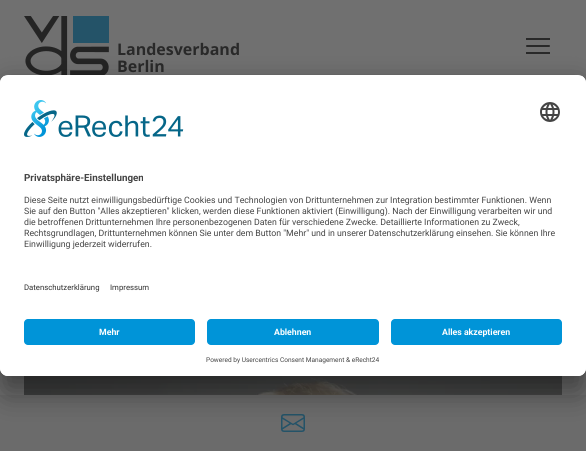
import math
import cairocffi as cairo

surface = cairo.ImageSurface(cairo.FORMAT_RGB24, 586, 451)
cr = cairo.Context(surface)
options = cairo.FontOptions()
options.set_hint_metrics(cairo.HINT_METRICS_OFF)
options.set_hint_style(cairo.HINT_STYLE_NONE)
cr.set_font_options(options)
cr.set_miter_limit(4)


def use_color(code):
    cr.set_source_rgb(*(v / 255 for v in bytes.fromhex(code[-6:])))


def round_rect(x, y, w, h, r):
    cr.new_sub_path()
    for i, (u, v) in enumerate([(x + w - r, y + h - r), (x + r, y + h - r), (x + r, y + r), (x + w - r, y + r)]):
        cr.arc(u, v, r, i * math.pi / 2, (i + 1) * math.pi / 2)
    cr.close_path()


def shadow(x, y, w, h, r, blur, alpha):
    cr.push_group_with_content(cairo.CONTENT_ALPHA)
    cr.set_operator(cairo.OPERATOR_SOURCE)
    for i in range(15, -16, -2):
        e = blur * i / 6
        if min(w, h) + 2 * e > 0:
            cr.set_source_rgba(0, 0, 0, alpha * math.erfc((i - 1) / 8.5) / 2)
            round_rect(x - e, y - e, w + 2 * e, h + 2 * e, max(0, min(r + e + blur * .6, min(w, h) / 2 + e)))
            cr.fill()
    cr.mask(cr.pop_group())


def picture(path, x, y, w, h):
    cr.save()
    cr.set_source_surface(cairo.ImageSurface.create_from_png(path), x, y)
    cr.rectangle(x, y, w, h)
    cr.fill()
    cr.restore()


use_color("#707070")
cr.paint()
picture("img1.png", 24, 16, 85, 59)
cr.select_font_face("Open Sans", cairo.FONT_SLANT_NORMAL, cairo.FONT_WEIGHT_BOLD)
cr.set_font_size(16)
use_color("#292929")
cr.move_to(117, 55)
cr.show_text("Landesverband")
cr.move_to(117, 72)
cr.show_text("Berlin")
round_rect(526, 45, 24, 2, 1)
cr.fill()
cr.rectangle(526, 38, 24, 2)
cr.fill()
cr.rectangle(526, 52, 24, 2)
cr.fill()
picture("img4.png", 24, 376, 538, 19)
use_color("#6b6b6b")
cr.rectangle(0, 395, 586, 56)
cr.fill()
picture("img5.png", 281, 414, 24, 18)
use_color("#000000")
shadow(0, 95, 586, 301, 8, 14, 0.3)
shadow(0, 80, 586, 301, 8, 13, 0.22)
use_color("#ffffff")
round_rect(0, 75, 586, 301, 8)
cr.fill()
cr.save()
round_rect(0, 75, 586, 301, 8)
cr.clip()
cr.new_path()
cr.move_to(8, 75)
cr.line_to(578, 75)
cr.curve_to(582.5, 75, 586, 78.5, 586, 83)
cr.line_to(586, 311)
cr.line_to(0, 311)
cr.line_to(0, 83)
cr.curve_to(0, 78.5, 3.5, 75, 8, 75)
cr.close_path()
cr.clip()
cr.rectangle(0, 76, 586, 235)
cr.fill()
cr.restore()
picture("img2.png", 24, 100, 160, 37)
picture("img3.png", 540, 102, 20, 20)
cr.select_font_face("Roboto", cairo.FONT_SLANT_NORMAL, cairo.FONT_WEIGHT_BOLD)
cr.set_font_size(9.8)
use_color("#444444")
cr.move_to(24, 181)
cr.show_text("Privatsphäre-Einstellungen")
cr.select_font_face("Roboto")
cr.set_font_size(8.75)
cr.move_to(24, 203)
cr.show_text("Diese Seite nutzt einwilligungsbedürftige Cookies und Technologien von Drittunternehmen zur Integration bestimmter Funktionen. Wenn")
cr.move_to(24, 214)
cr.show_text("Sie auf den Button \"Alles akzeptieren\" klicken, werden diese Funktionen aktiviert (Einwilligung). Nach der Einwilligung verarbeiten wir und")
cr.move_to(24, 225)
cr.show_text("die betroffenen Drittunternehmen Ihre personenbezogenen Daten für verschiedene Zwecke. Detaillierte Informationen zu Zweck,")
cr.move_to(24, 236)
cr.show_text("Rechtsgrundlagen, Drittunternehmen können Sie unter dem Button \"Mehr\" und in unserer Datenschutzerklärung einsehen. Sie können Ihre")
cr.move_to(24, 247)
cr.show_text("Einwilligung jederzeit widerrufen.")
cr.set_font_size(7.75)
use_color("#303030")
cr.move_to(24, 290)
cr.show_text("Datenschutzerklärung")
cr.move_to(110, 290)
cr.show_text("Impressum")
use_color("#ffffff")
cr.new_path()
cr.move_to(0, 311)
cr.line_to(586, 311)
cr.line_to(586, 368)
cr.curve_to(586, 372.5, 582.5, 376, 578, 376)
cr.line_to(8, 376)
cr.curve_to(3.5, 376, 0, 372.5, 0, 368)
cr.close_path()
cr.fill()
use_color("#0094d8")
round_rect(24, 319, 171, 26, 4)
cr.fill()
cr.select_font_face("Roboto", cairo.FONT_SLANT_NORMAL, cairo.FONT_WEIGHT_BOLD)
cr.set_font_size(8.75)
use_color("#ffffff")
cr.move_to(99, 335)
cr.show_text("Mehr")
use_color("#0094d8")
round_rect(207, 319, 172, 26, 4)
cr.fill()
use_color("#ffffff")
cr.move_to(274, 335)
cr.show_text("Ablehnen")
use_color("#0094d8")
round_rect(391, 319, 171, 26, 4)
cr.fill()
use_color("#ffffff")
cr.move_to(442, 335)
cr.show_text("Alles akzeptieren")
cr.select_font_face("Roboto")
cr.set_font_size(6.55)
use_color("#444444")
cr.move_to(206, 362)
cr.show_text("Powered by Usercentrics Consent Management & eRecht24")
surface.write_to_png("result.png")
